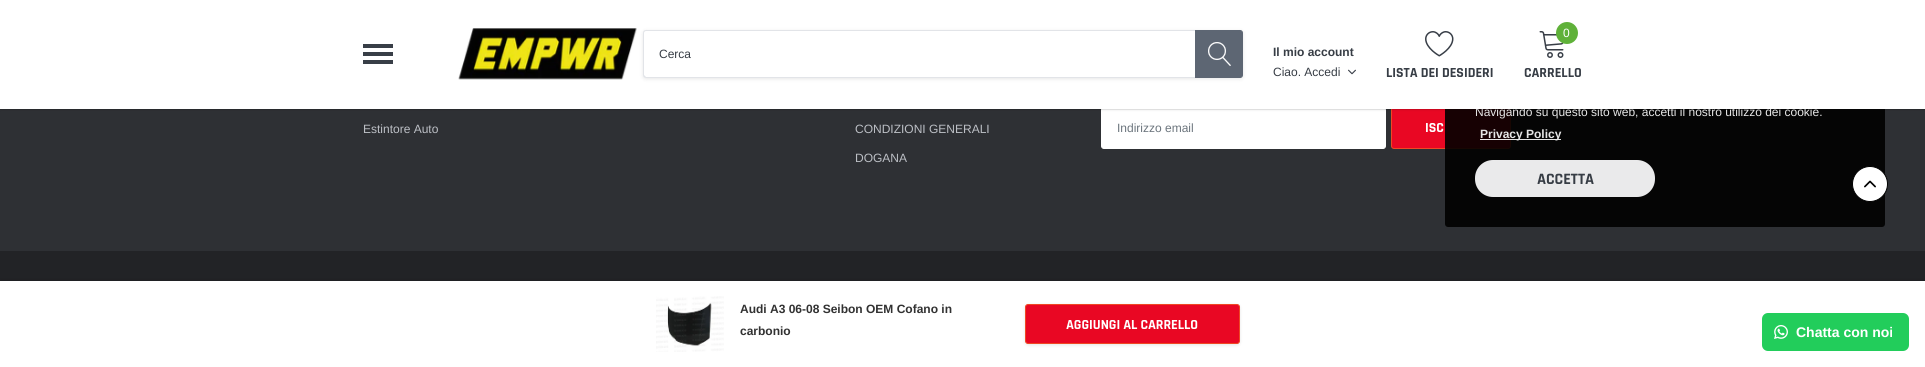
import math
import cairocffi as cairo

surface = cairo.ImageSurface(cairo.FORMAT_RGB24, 1925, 367)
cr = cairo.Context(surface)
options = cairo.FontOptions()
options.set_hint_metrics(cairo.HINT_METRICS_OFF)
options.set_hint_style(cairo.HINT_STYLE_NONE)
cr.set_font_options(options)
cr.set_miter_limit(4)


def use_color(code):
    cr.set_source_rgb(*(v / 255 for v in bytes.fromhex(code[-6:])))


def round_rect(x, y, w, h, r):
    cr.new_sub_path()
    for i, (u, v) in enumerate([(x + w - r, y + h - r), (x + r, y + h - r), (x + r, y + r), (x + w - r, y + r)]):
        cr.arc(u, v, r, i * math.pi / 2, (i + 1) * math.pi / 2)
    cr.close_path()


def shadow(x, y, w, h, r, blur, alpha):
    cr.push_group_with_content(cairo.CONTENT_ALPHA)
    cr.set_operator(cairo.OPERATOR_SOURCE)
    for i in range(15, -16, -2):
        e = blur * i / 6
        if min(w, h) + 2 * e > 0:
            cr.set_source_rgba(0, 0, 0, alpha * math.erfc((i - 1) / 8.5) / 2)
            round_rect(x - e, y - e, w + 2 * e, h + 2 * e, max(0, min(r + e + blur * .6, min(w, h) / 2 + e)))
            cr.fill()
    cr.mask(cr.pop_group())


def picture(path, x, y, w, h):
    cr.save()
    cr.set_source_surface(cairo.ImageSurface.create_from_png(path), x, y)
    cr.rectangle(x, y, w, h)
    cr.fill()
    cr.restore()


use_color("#2e3034")
cr.paint()
use_color("#ffffff")
round_rect(1101.5, 107.5, 284, 41, 2.5)
cr.fill_preserve()
cr.set_line_width(1)
cr.stroke()
use_color("#e90723")
round_rect(1391.5, 107.5, 119, 41, 2.5)
cr.fill_preserve()
use_color("#f04723")
cr.stroke()
cr.set_source_rgba(0, 0, 0, 0.9)
round_rect(1445, 27, 440, 200, 3)
cr.fill()
use_color("#000000")
shadow(0, 1, 1925, 109, 0, 1, 0.1)
cr.select_font_face("Arimo")
cr.set_font_size(12)
use_color("#e6e6e6")
cr.move_to(1475, 116)
cr.show_text("Navigando su questo sito web, accetti il nostro utilizzo dei cookie.")
cr.rectangle(-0.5, -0.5, 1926, 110)
cr.set_source_rgba(0, 0, 0, 0.06)
cr.stroke()
use_color("#ffffff")
cr.rectangle(0, 0, 1925, 109)
cr.fill()
use_color("#383e47")
cr.rectangle(363, 52, 30, 4)
cr.fill()
cr.rectangle(363, 44, 30, 4)
cr.fill()
cr.rectangle(363, 60, 30, 4)
cr.fill()
picture("img1.png", 458, 28, 179, 52)
use_color("#000000")
shadow(643, 31, 600, 48, 3, 2, 0.1)
use_color("#ffffff")
round_rect(643, 30, 600, 48, 3)
cr.fill()
use_color("#e2e4e8")
cr.set_fill_rule(cairo.FILL_RULE_EVEN_ODD)
cr.new_path()
cr.move_to(646, 30)
cr.line_to(1195, 30)
cr.line_to(1195, 78)
cr.line_to(646, 78)
cr.curve_to(644, 78, 643, 77, 643, 75)
cr.line_to(643, 33)
cr.curve_to(643, 31, 644, 30, 646, 30)
cr.close_path()
cr.move_to(646, 31)
cr.line_to(1195, 31)
cr.line_to(1195, 77)
cr.line_to(646, 77)
cr.line_to(644, 75)
cr.line_to(644, 33)
cr.curve_to(644, 32, 645, 31, 646, 31)
cr.close_path()
cr.fill()
use_color("#373d45")
cr.move_to(659, 58)
cr.show_text("Cerca")
use_color("#5d6673")
cr.new_path()
cr.move_to(1195.5, 30.5)
cr.line_to(1240, 30.5)
cr.curve_to(1241.5, 30.5, 1242.5, 31.5, 1242.5, 33)
cr.line_to(1242.5, 75)
cr.curve_to(1242.5, 76.5, 1241.5, 77.5, 1240, 77.5)
cr.line_to(1195.5, 77.5)
cr.close_path()
cr.fill_preserve()
cr.stroke()
picture("img2.png", 1208, 42, 23, 24)
cr.select_font_face("Arimo", cairo.FONT_SLANT_NORMAL, cairo.FONT_WEIGHT_BOLD)
use_color("#373d45")
cr.move_to(1273, 56)
cr.show_text("Il mio account")
cr.select_font_face("Arimo")
cr.move_to(1273, 76)
cr.show_text("Ciao. Accedi")
picture("img3.png", 1348, 69, 8, 6)
picture("img4.png", 1539, 31, 25, 27)
use_color("#5fb139")
cr.arc(1567, 33, 11, 0, 2 * math.pi)
cr.fill()
use_color("#ffffff")
cr.move_to(1563, 37)
cr.show_text("0")
cr.select_font_face("Rajdhani", cairo.FONT_SLANT_NORMAL, cairo.FONT_WEIGHT_BOLD)
cr.set_font_size(14)
use_color("#373d45")
cr.move_to(1524, 77)
cr.show_text("CARRELLO")
picture("img5.png", 1425, 31, 29, 26)
cr.move_to(1386, 77)
cr.show_text("LISTA DEI DESIDERI")
cr.select_font_face("Arimo")
cr.set_font_size(12)
use_color("#bcbfc5")
cr.move_to(363, 133)
cr.show_text("Estintore Auto")
cr.move_to(855, 133)
cr.show_text("CONDIZIONI GENERALI")
cr.move_to(855, 162)
cr.show_text("DOGANA")
use_color("#6c757d")
cr.move_to(1117, 132)
cr.show_text("Indirizzo email")
cr.select_font_face("Rajdhani", cairo.FONT_SLANT_NORMAL, cairo.FONT_WEIGHT_BOLD)
cr.set_font_size(14)
use_color("#ffffff")
cr.move_to(1425, 132)
cr.show_text("ISC")
use_color("#222326")
cr.rectangle(0, 251, 1925, 30)
cr.fill()
use_color("#ffffff")
cr.arc(1870, 184, 17.5, 0, 2 * math.pi)
cr.fill_preserve()
use_color("#000000")
cr.stroke()
picture("img6.png", 1864, 180, 12, 8)
use_color("#000000")
shadow(0, 281, 1925, 86, 0, 2, 0.2)
use_color("#ffffff")
cr.rectangle(0, 281, 1925, 86)
cr.fill()
picture("img7.png", 656, 296, 68, 56)
cr.select_font_face("Arimo", cairo.FONT_SLANT_NORMAL, cairo.FONT_WEIGHT_BOLD)
cr.set_font_size(12)
use_color("#323232")
cr.move_to(740, 313)
cr.show_text("Audi A3 06-08 Seibon OEM Cofano in")
cr.move_to(740, 335)
cr.show_text("carbonio")
use_color("#000000")
shadow(1025, 305, 215, 40, 3, 1.5, 0.1)
use_color("#e90723")
round_rect(1025.5, 304.5, 214, 39, 2.5)
cr.fill_preserve()
use_color("#f04723")
cr.stroke()
cr.select_font_face("Rajdhani", cairo.FONT_SLANT_NORMAL, cairo.FONT_WEIGHT_BOLD)
cr.set_font_size(14)
use_color("#ffffff")
cr.move_to(1066, 329)
cr.show_text("AGGIUNGI AL CARRELLO")
cr.set_source_rgba(1, 1, 1, 0.9)
cr.rectangle(1480, 139, 81, 1)
cr.fill()
cr.select_font_face("Arimo", cairo.FONT_SLANT_NORMAL, cairo.FONT_WEIGHT_BOLD)
cr.set_font_size(12)
use_color("#e6e6e6")
cr.move_to(1480, 138)
cr.show_text("Privacy Policy")
use_color("#eaeaeb")
round_rect(1475, 160, 180, 37, 18)
cr.fill()
cr.select_font_face("Rajdhani", cairo.FONT_SLANT_NORMAL, cairo.FONT_WEIGHT_BOLD)
cr.set_font_size(16)
use_color("#373d45")
cr.move_to(1537, 184)
cr.show_text("ACCETTA")
use_color("#22cd5b")
round_rect(1762, 313, 147, 38, 6)
cr.fill()
picture("img8.png", 1774, 325, 14, 14)
cr.select_font_face("Arimo", cairo.FONT_SLANT_NORMAL, cairo.FONT_WEIGHT_BOLD)
cr.set_font_size(14)
use_color("#ffffff")
cr.move_to(1796, 337)
cr.show_text("Chatta con noi")
surface.write_to_png("result.png")
